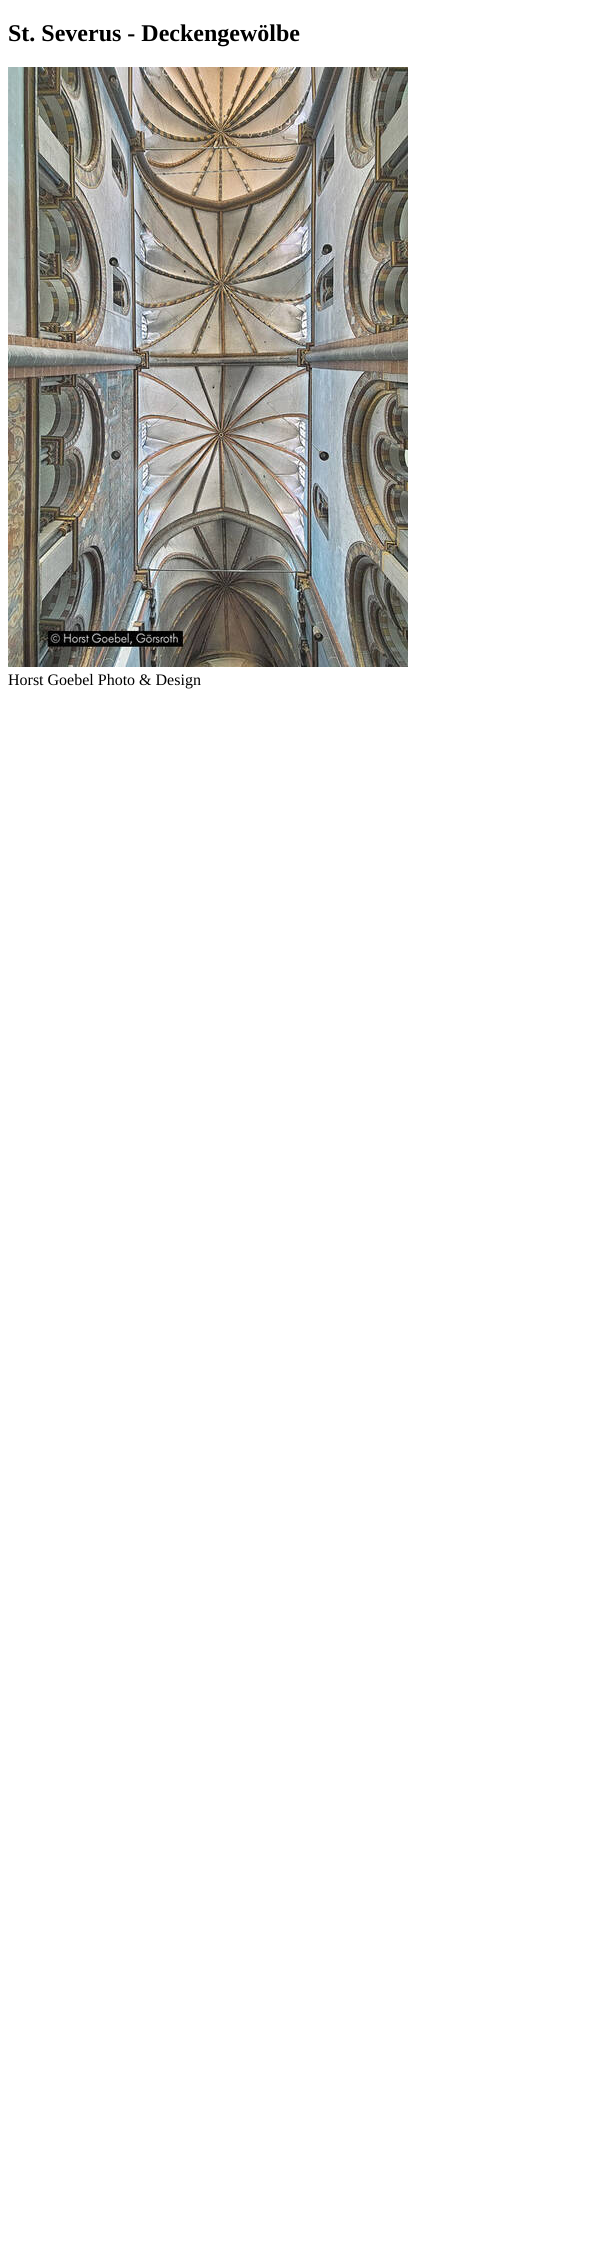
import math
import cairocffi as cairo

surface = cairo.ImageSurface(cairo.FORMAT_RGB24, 599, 2261)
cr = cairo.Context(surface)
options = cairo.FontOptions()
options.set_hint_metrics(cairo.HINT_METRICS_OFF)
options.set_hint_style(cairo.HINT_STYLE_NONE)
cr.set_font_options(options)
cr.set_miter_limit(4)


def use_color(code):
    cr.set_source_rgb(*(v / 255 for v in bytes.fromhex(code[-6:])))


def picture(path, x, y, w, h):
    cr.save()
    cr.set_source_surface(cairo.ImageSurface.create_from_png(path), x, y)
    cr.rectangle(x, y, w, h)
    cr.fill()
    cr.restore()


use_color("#ffffff")
cr.paint()
cr.select_font_face("Liberation Serif", cairo.FONT_SLANT_NORMAL, cairo.FONT_WEIGHT_BOLD)
cr.set_font_size(24)
use_color("#000000")
cr.move_to(8, 41)
cr.show_text("St. Severus - Deckengewölbe")
picture("img1.png", 8, 67, 400, 600)
cr.select_font_face("Liberation Serif")
cr.set_font_size(16)
cr.move_to(8, 685)
cr.show_text("Horst Goebel Photo & Design")
surface.write_to_png("result.png")
